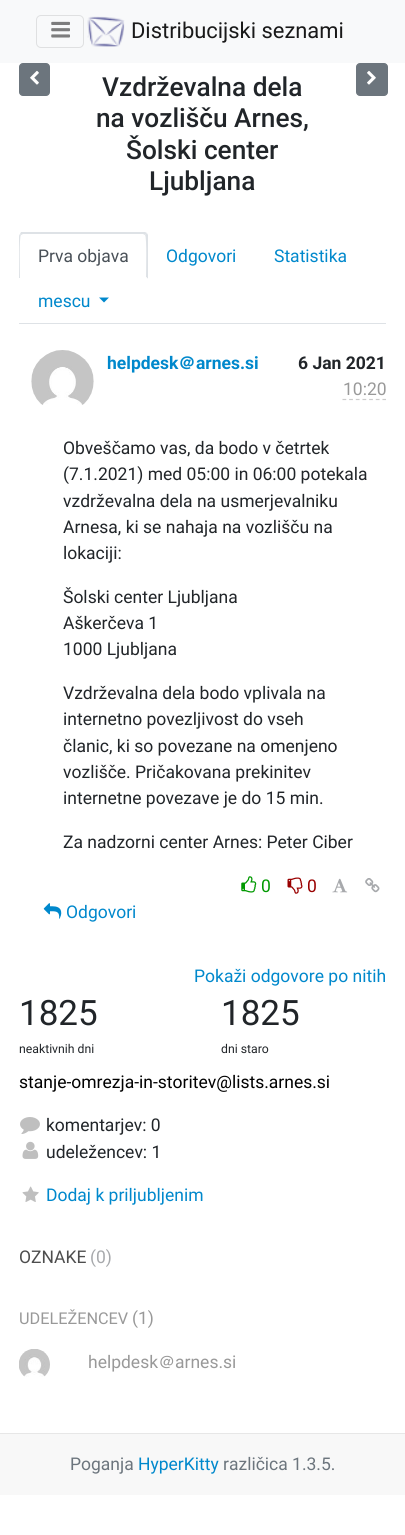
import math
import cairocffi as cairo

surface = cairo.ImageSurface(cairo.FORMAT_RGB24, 405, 1535)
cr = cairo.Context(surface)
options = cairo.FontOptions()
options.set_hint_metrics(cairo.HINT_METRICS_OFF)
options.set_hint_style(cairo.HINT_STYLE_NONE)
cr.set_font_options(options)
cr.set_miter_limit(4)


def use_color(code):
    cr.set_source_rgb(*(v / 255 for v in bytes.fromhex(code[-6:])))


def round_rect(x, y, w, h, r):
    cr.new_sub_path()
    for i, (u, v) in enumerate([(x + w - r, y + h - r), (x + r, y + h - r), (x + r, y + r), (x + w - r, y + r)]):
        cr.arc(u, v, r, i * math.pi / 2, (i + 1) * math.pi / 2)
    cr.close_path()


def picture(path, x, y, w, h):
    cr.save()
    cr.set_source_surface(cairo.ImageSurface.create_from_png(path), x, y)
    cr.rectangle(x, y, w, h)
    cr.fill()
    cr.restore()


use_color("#ffffff")
cr.paint()
use_color("#f8f9fa")
cr.rectangle(0, 0, 405, 63)
cr.fill()
round_rect(36.5, 15.5, 47, 32, 4.5)
use_color("#dfe0e1")
cr.set_line_width(1)
cr.stroke()
picture("img1.png", 51, 21, 19, 17)
picture("img2.png", 87, 16, 38, 31)
cr.select_font_face("Roboto")
cr.set_font_size(21.9)
use_color("#191919")
cr.move_to(131, 38)
cr.show_text("Distribucijski seznami")
use_color("#6c757d")
round_rect(19.5, 63.5, 30, 32, 3.5)
cr.fill_preserve()
cr.stroke()
picture("img3.png", 30, 70, 9, 15)
cr.select_font_face("Roboto Medium")
cr.set_font_size(26.25)
use_color("#212529")
cr.move_to(102, 96)
cr.show_text("Vzdrževalna dela")
cr.move_to(96, 127)
cr.show_text("na vozlišču Arnes,")
cr.move_to(126, 159)
cr.show_text("Šolski center")
cr.move_to(149, 190)
cr.show_text("Ljubljana")
use_color("#6c757d")
round_rect(356.5, 63.5, 31, 32, 3.5)
cr.fill_preserve()
cr.stroke()
picture("img4.png", 367, 70, 9, 15)
use_color("#dee2e6")
cr.rectangle(19, 323, 367, 1)
cr.fill()
cr.new_path()
cr.move_to(23, 234)
cr.line_to(21, 235)
cr.line_to(20, 234)
cr.line_to(21, 232)
cr.line_to(145, 232)
cr.line_to(147, 233)
cr.line_to(145, 235)
cr.line_to(143, 234)
cr.close_path()
cr.fill()
cr.new_path()
cr.move_to(147, 233)
cr.line_to(148, 235)
cr.line_to(148, 279)
cr.line_to(146, 277)
cr.curve_to(146, 272, 147, 237, 145, 235)
cr.close_path()
cr.fill()
use_color("#ffffff")
cr.new_path()
cr.move_to(148, 279)
cr.line_to(19, 279)
cr.line_to(20, 278)
cr.line_to(146, 278)
cr.line_to(146, 277)
cr.close_path()
cr.fill()
use_color("#dee2e6")
cr.new_path()
cr.move_to(19, 278)
cr.line_to(19, 237)
cr.curve_to(19, 236, 19, 235, 20, 234)
cr.line_to(21, 235)
cr.curve_to(19, 236, 20, 272, 20, 278)
cr.close_path()
cr.fill()
cr.select_font_face("Roboto")
cr.set_font_size(17.5)
use_color("#495057")
cr.move_to(38, 262)
cr.show_text("Prva objava")
use_color("#0088cc")
cr.move_to(166, 262)
cr.show_text("Odgovori")
cr.move_to(274, 262)
cr.show_text("Statistika")
cr.move_to(38, 307)
cr.show_text("mescu")
cr.new_path()
cr.move_to(99, 297.5)
cr.line_to(109, 297.5)
cr.line_to(104, 302.5)
cr.close_path()
cr.fill()
picture("img5.png", 31, 350, 63, 55)
cr.select_font_face("Roboto", cairo.FONT_SLANT_NORMAL, cairo.FONT_WEIGHT_BOLD)
cr.move_to(107, 369)
cr.show_text("helpdesk")
cr.select_font_face("WenQuanYi Zen Hei", cairo.FONT_SLANT_NORMAL, cairo.FONT_WEIGHT_BOLD)
cr.move_to(178, 369)
cr.show_text("＠")
cr.select_font_face("Roboto", cairo.FONT_SLANT_NORMAL, cairo.FONT_WEIGHT_BOLD)
cr.move_to(196, 369)
cr.show_text("arnes.si")
use_color("#212529")
cr.move_to(298, 369)
cr.show_text("6 Jan 2021")
cr.select_font_face("Roboto")
use_color("#999999")
cr.move_to(343, 395)
cr.show_text("10:20")
cr.new_path()
cr.move_to(342.5, 399.5)
cr.line_to(386, 399.5)
use_color("#cccccc")
cr.set_line_width(1.2)
cr.set_dash([3.75, 2.91])
cr.stroke()
use_color("#212529")
cr.move_to(63, 454)
cr.show_text("Obveščamo vas, da bodo v četrtek")
cr.move_to(63, 480)
cr.show_text("(7.1.2021) med 05:00 in 06:00 potekala")
cr.move_to(63, 507)
cr.show_text("vzdrževalna dela na usmerjevalniku")
cr.move_to(63, 533)
cr.show_text("Arnesa, ki se nahaja na vozlišču na")
cr.move_to(63, 559)
cr.show_text("lokaciji:")
cr.move_to(63, 603)
cr.show_text("Šolski center Ljubljana")
cr.move_to(63, 629)
cr.show_text("Aškerčeva 1")
cr.move_to(63, 655)
cr.show_text("1000 Ljubljana")
cr.move_to(63, 699)
cr.show_text("Vzdrževalna dela bodo vplivala na")
cr.move_to(63, 725)
cr.show_text("internetno povezljivost do vseh")
cr.move_to(63, 752)
cr.show_text("članic, ki so povezane na omenjeno")
cr.move_to(63, 778)
cr.show_text("vozlišče. Pričakovana prekinitev")
cr.move_to(63, 804)
cr.show_text("internetne povezave je do 15 min.")
cr.move_to(63, 848)
cr.show_text("Za nadzorni center Arnes: Peter Ciber")
picture("img6.png", 241, 876, 16, 17)
use_color("#009900")
cr.move_to(261, 892)
cr.show_text("0")
picture("img7.png", 287, 877, 16, 17)
use_color("#990000")
cr.move_to(307, 892)
cr.show_text("0")
picture("img8.png", 332, 878, 16, 15)
picture("img9.png", 365, 878, 15, 15)
picture("img10.png", 43, 903, 19, 16)
use_color("#0088cc")
cr.move_to(66, 918)
cr.show_text("Odgovori")
cr.move_to(194, 982)
cr.show_text("Pokaži odgovore po nitih")
cr.set_font_size(35)
use_color("#212529")
cr.move_to(19, 1025)
cr.show_text("1825")
cr.set_font_size(12.25)
cr.move_to(19, 1053)
cr.show_text("neaktivnih dni")
cr.set_font_size(35)
cr.move_to(221, 1025)
cr.show_text("1825")
cr.set_font_size(12.25)
cr.move_to(221, 1053)
cr.show_text("dni staro")
cr.set_font_size(17.5)
use_color("#000000")
cr.move_to(19, 1088)
cr.show_text("stanje-omrezja-in-storitev@lists.arnes.si")
picture("img11.png", 20, 1117, 20, 17)
use_color("#212529")
cr.move_to(46, 1131)
cr.show_text("komentarjev: 0")
picture("img12.png", 22, 1141, 17, 18)
cr.move_to(46, 1158)
cr.show_text("udeležencev: 1")
picture("img13.png", 22, 1186, 17, 16)
use_color("#0088cc")
cr.move_to(46, 1201)
cr.show_text("Dodaj k priljubljenim")
use_color("#4d4d4d")
cr.move_to(19, 1263)
cr.show_text("OZNAKE")
use_color("#a7a9ac")
cr.move_to(90, 1263)
cr.show_text("(0)")
cr.set_font_size(16.25)
use_color("#999999")
cr.move_to(19, 1324)
cr.show_text("UDELEŽENCEV")
cr.set_font_size(17.5)
cr.move_to(132, 1324)
cr.show_text("(1)")
picture("img14.png", 19, 1349, 31, 28)
cr.move_to(88, 1368)
cr.show_text("helpdesk")
cr.select_font_face("WenQuanYi Zen Hei Medium")
cr.move_to(158, 1368)
cr.show_text("＠")
cr.select_font_face("Roboto")
cr.move_to(175, 1368)
cr.show_text("arnes.si")
use_color("#f8f8f8")
cr.rectangle(0, 1434, 405, 61)
cr.fill()
use_color("#e7e7e7")
cr.rectangle(0, 1433, 405, 1)
cr.fill()
use_color("#6c757d")
cr.move_to(70, 1470)
cr.show_text("Poganja")
use_color("#0088cc")
cr.move_to(138, 1470)
cr.show_text("HyperKitty")
use_color("#6c757d")
cr.move_to(223, 1470)
cr.show_text("različica 1.3.5.")
surface.write_to_png("result.png")
